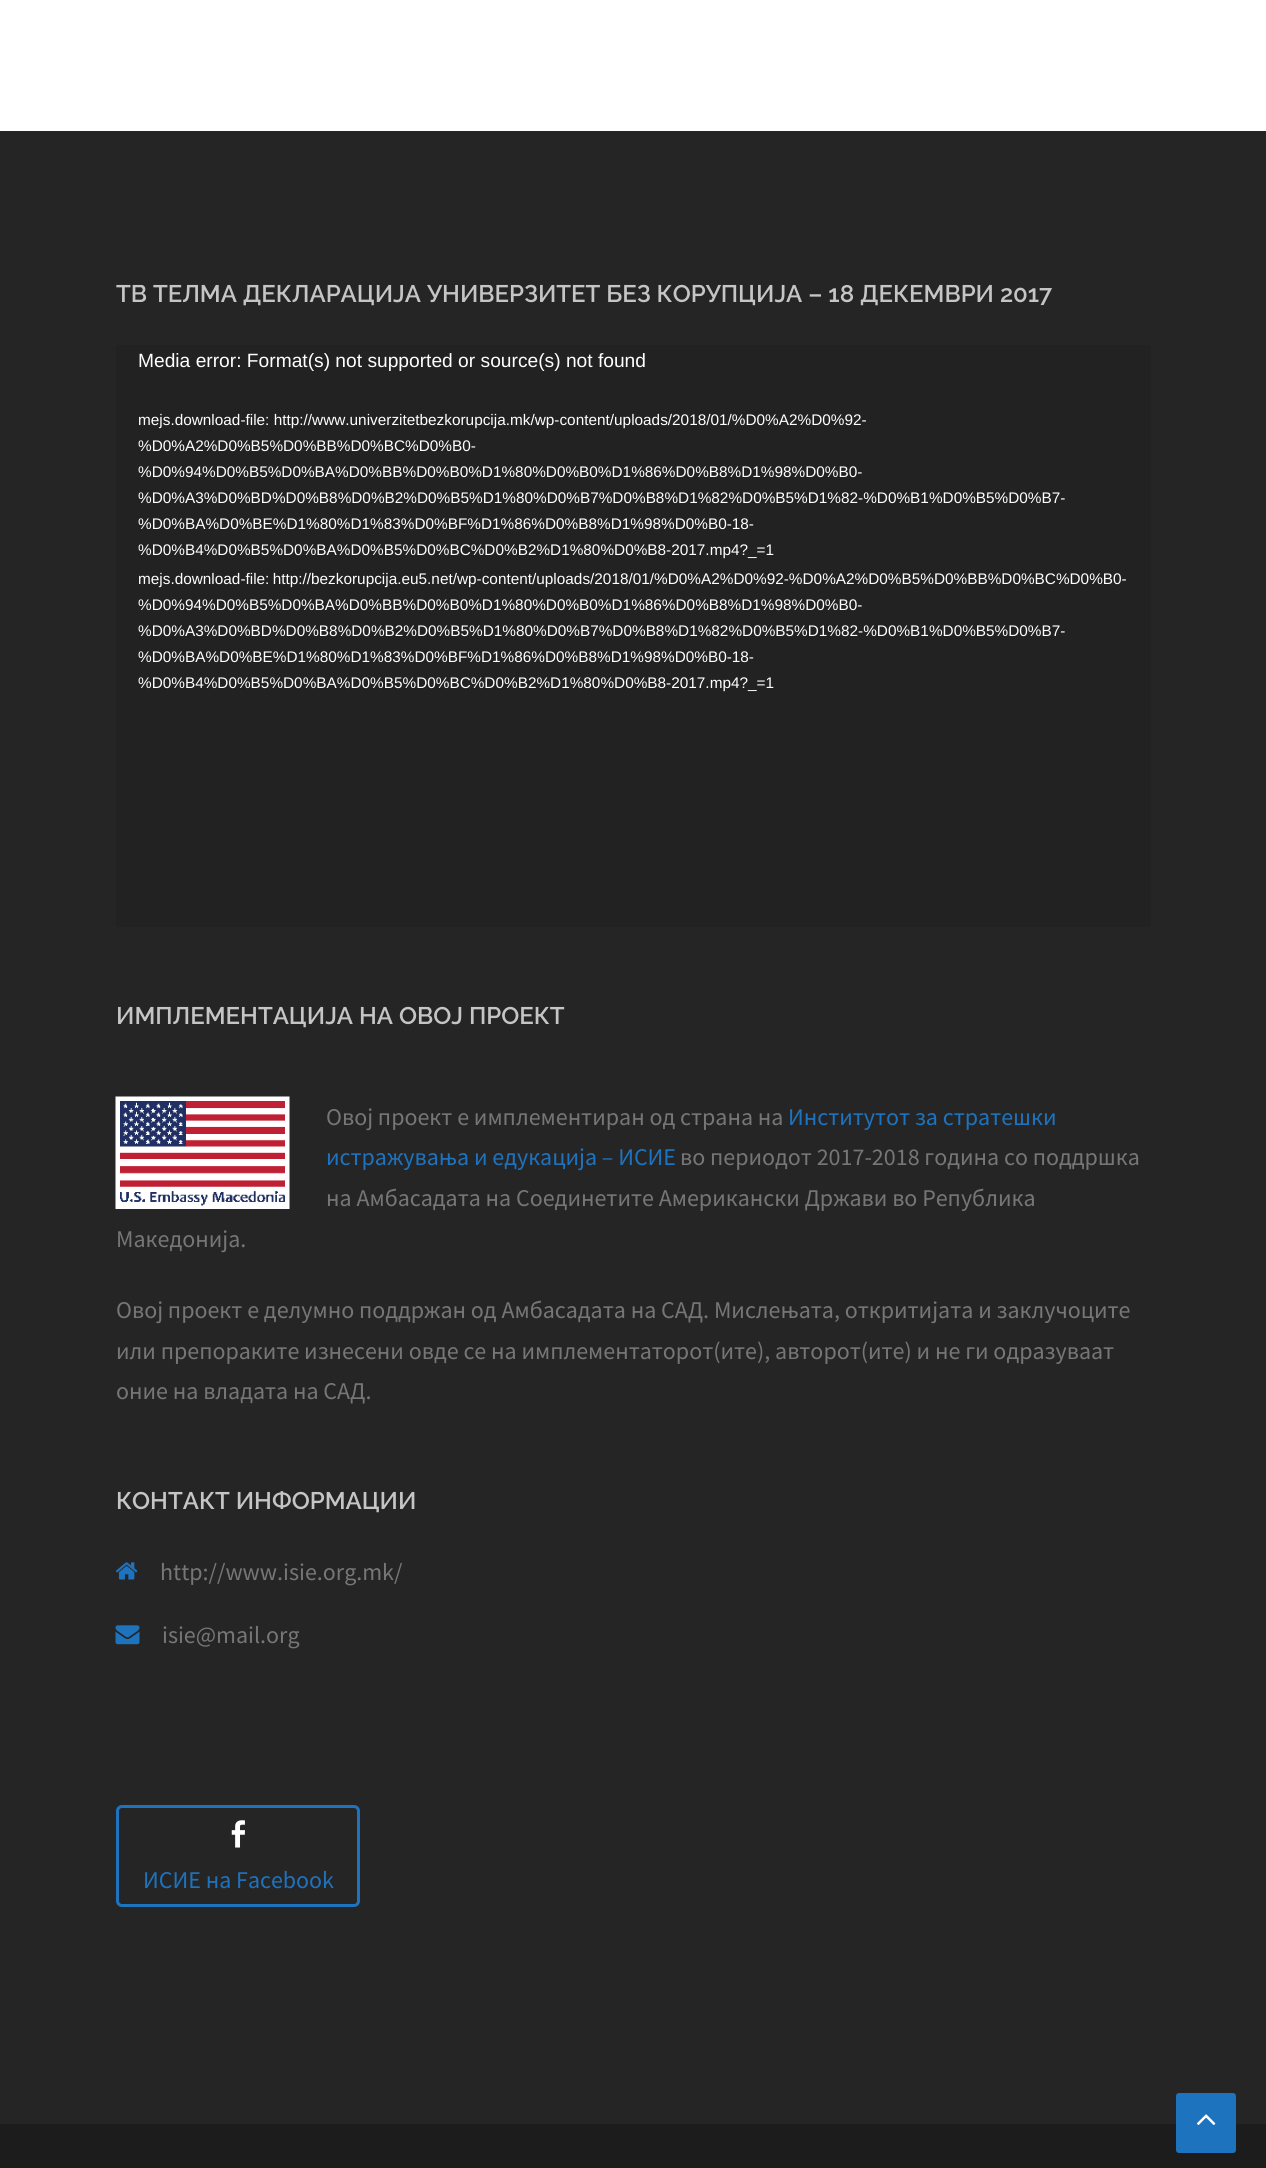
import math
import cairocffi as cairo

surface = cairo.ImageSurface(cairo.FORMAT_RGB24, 1266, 2168)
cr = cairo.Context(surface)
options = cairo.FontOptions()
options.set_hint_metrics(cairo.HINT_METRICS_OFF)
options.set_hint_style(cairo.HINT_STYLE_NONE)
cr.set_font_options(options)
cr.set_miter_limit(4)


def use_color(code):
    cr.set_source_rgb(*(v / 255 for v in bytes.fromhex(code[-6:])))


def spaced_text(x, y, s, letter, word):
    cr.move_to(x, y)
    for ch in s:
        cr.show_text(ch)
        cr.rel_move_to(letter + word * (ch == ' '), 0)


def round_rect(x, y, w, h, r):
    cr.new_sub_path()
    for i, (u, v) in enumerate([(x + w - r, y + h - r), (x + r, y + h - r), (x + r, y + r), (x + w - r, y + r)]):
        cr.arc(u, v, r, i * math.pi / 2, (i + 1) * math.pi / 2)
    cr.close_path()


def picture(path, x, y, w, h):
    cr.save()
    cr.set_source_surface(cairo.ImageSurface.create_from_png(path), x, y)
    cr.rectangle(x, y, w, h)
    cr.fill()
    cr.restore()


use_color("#ffffff")
cr.paint()
use_color("#252525")
cr.rectangle(0, 131, 1266, 1993)
cr.fill()
cr.select_font_face("Raleway SemiBold")
cr.set_font_size(24)
use_color("#c5c5c5")
cr.move_to(116, 302)
cr.show_text("ТВ ТЕЛМА ДЕКЛАРАЦИЈА УНИВЕРЗИТЕТ БЕЗ КОРУПЦИЈА – 18 ДЕКЕМВРИ 2017")
use_color("#222222")
cr.rectangle(116, 345, 1035, 582)
cr.fill()
cr.select_font_face("Liberation Sans")
cr.set_font_size(19.2)
use_color("#ffffff")
cr.move_to(138, 367)
cr.show_text("Media error: Format(s) not supported or source(s) not found")
cr.set_font_size(15.35)
cr.move_to(138, 425)
cr.show_text("mejs.download-file: http://www.univerzitetbezkorupcija.mk/wp-content/uploads/2018/01/%D0%A2%D0%92-")
cr.move_to(138, 451)
cr.show_text("%D0%A2%D0%B5%D0%BB%D0%BC%D0%B0-")
cr.move_to(138, 477)
cr.show_text("%D0%94%D0%B5%D0%BA%D0%BB%D0%B0%D1%80%D0%B0%D1%86%D0%B8%D1%98%D0%B0-")
cr.move_to(138, 503)
cr.show_text("%D0%A3%D0%BD%D0%B8%D0%B2%D0%B5%D1%80%D0%B7%D0%B8%D1%82%D0%B5%D1%82-%D0%B1%D0%B5%D0%B7-")
cr.move_to(138, 529)
cr.show_text("%D0%BA%D0%BE%D1%80%D1%83%D0%BF%D1%86%D0%B8%D1%98%D0%B0-18-")
cr.move_to(138, 555)
cr.show_text("%D0%B4%D0%B5%D0%BA%D0%B5%D0%BC%D0%B2%D1%80%D0%B8-2017.mp4?_=1")
spaced_text(138, 584, "mejs.download-file: http://bezkorupcija.eu5.net/wp-content/uploads/2018/01/%D0%A2%D0%92-%D0%A2%D0%B5%D0%BB%D0%BC%D0%B0-", 0, -1)
cr.move_to(138, 610)
cr.show_text("%D0%94%D0%B5%D0%BA%D0%BB%D0%B0%D1%80%D0%B0%D1%86%D0%B8%D1%98%D0%B0-")
cr.move_to(138, 636)
cr.show_text("%D0%A3%D0%BD%D0%B8%D0%B2%D0%B5%D1%80%D0%B7%D0%B8%D1%82%D0%B5%D1%82-%D0%B1%D0%B5%D0%B7-")
cr.move_to(138, 662)
cr.show_text("%D0%BA%D0%BE%D1%80%D1%83%D0%BF%D1%86%D0%B8%D1%98%D0%B0-18-")
cr.move_to(138, 688)
cr.show_text("%D0%B4%D0%B5%D0%BA%D0%B5%D0%BC%D0%B2%D1%80%D0%B8-2017.mp4?_=1")
cr.select_font_face("Raleway SemiBold")
cr.set_font_size(24)
use_color("#c5c5c5")
cr.move_to(116, 1024)
cr.show_text("ИМПЛЕМЕНТАЦИЈА НА ОВОЈ ПРОЕКТ")
picture("img1.png", 115, 1096, 175, 113)
cr.select_font_face("Source Sans Pro")
use_color("#767676")
cr.move_to(326, 1125)
cr.show_text("Овој проект е имплементиран од страна на")
use_color("#1e73be")
cr.move_to(788, 1125)
cr.show_text("Институтот за стратешки")
cr.move_to(326, 1165)
cr.show_text("истражувања и едукација – ИСИЕ")
use_color("#767676")
cr.move_to(680, 1165)
cr.show_text("во периодот 2017-2018 година со поддршка")
cr.move_to(326, 1206)
cr.show_text("на Амбасадата на Соединетите Американски Држави во Република")
cr.move_to(116, 1247)
cr.show_text("Македонија.")
cr.move_to(116, 1318)
cr.show_text("Овој проект е делумно поддржан од Амбасадата на САД. Мислењата, откритијата и заклучоците")
cr.move_to(116, 1359)
cr.show_text("или препораките изнесени овде се на имплементаторот(ите), авторот(ите) и не ги одразуваат")
cr.move_to(116, 1399)
cr.show_text("оние на владата на САД.")
cr.select_font_face("Raleway SemiBold")
use_color("#c5c5c5")
cr.move_to(116, 1509)
cr.show_text("КОНТАКТ ИНФОРМАЦИИ")
picture("img2.png", 115, 1562, 23, 18)
cr.select_font_face("Source Sans Pro")
use_color("#767676")
cr.move_to(160, 1580)
cr.show_text("http://www.isie.org.mk/")
picture("img3.png", 115, 1625, 25, 20)
cr.move_to(162, 1643)
cr.show_text("isie@mail.org")
round_rect(117.5, 1806.5, 241, 99, 4.5)
use_color("#1e73be")
cr.set_line_width(3)
cr.stroke()
picture("img4.png", 231, 1820, 14, 28)
cr.move_to(143, 1888)
cr.show_text("ИСИЕ на Facebook")
use_color("#1c1c1c")
cr.rectangle(0, 2124, 1266, 44)
cr.fill()
use_color("#1e73be")
round_rect(1176, 2093, 60, 60, 3)
cr.fill()
picture("img5.png", 1197, 2114, 19, 11)
surface.write_to_png("result.png")
